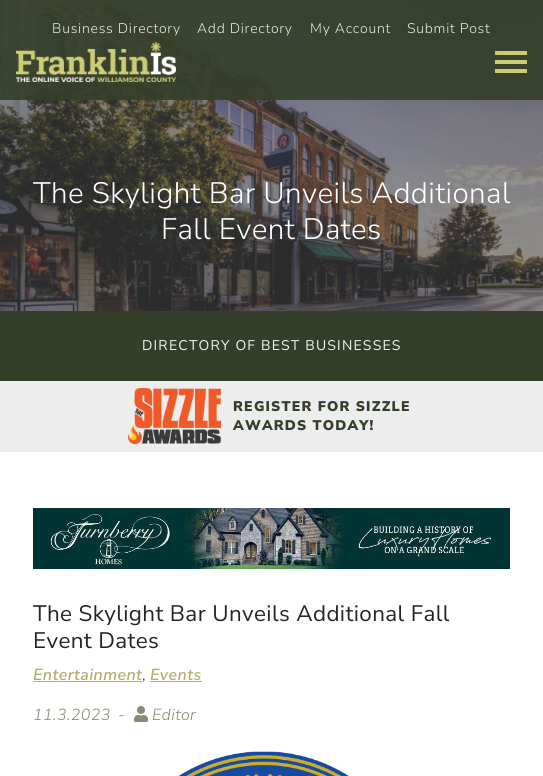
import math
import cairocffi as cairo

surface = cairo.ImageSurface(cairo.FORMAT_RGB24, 543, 776)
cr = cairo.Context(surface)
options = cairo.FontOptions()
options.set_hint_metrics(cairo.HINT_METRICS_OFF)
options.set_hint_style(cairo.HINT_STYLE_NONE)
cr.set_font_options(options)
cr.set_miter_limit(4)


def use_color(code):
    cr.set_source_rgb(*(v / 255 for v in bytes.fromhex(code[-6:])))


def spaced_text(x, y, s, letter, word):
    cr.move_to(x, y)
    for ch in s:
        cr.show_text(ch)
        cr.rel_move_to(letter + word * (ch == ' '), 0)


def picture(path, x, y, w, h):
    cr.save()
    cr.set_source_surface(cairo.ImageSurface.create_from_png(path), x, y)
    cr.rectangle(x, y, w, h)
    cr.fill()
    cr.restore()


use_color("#ffffff")
cr.paint()
picture("img2.png", 0, 0, 543, 311)
cr.set_source_rgba(0.204, 0.247, 0.161, 0.91)
cr.rectangle(0, 0, 543, 100)
cr.fill()
cr.select_font_face("Nunito Sans Light")
cr.set_font_size(14)
use_color("#e8ebdc")
spaced_text(52, 33, "Business Directory", 0.75, 0)
spaced_text(197, 33, "Add Directory", 0.75, 0)
spaced_text(310, 33, "My Account", 0.75, 0)
spaced_text(407, 33, "Submit Post", 0.75, 0)
picture("img1.png", 16, 42, 160, 40)
use_color("#cccc75")
cr.rectangle(495, 51, 32, 4)
cr.fill()
cr.rectangle(495, 60, 32, 4)
cr.fill()
cr.rectangle(495, 69, 32, 4)
cr.fill()
cr.set_font_size(29.6)
use_color("#ffffff")
spaced_text(33, 203, "The Skylight Bar Unveils Additional", 0.4, 0)
spaced_text(161, 239, "Fall Event Dates", 0.4, 0)
use_color("#343f29")
cr.rectangle(0, 311, 543, 70)
cr.fill()
cr.select_font_face("Nunito Sans")
cr.set_font_size(14)
use_color("#f5f5f5")
spaced_text(142, 350, "DIRECTORY OF BEST BUSINESSES", 1.2, 0)
use_color("#ededed")
cr.rectangle(0, 381, 543, 71)
cr.fill()
picture("img3.png", 128, 388, 93, 56)
cr.select_font_face("Nunito Sans Black")
use_color("#343f29")
spaced_text(233, 411, "REGISTER FOR SIZZLE", 1.2, 0)
spaced_text(233, 430, "AWARDS TODAY!", 1.2, 0)
picture("img4.png", 33, 508, 477, 61)
cr.select_font_face("Nunito Sans")
cr.set_font_size(22.4)
use_color("#212529")
spaced_text(33, 621, "The Skylight Bar Unveils Additional Fall", 0.4, 0)
spaced_text(33, 648, "Event Dates", 0.4, 0)
cr.select_font_face("Nunito Sans SemiBold", cairo.FONT_SLANT_ITALIC)
cr.set_font_size(16)
use_color("#b0b06a")
spaced_text(33, 680, "Entertainment", 0.4, 0)
cr.rectangle(33, 681, 109, 1)
cr.fill()
cr.select_font_face("Nunito Sans Light")
use_color("#212529")
spaced_text(142, 680, ",", 0.4, 0)
cr.select_font_face("Nunito Sans SemiBold", cairo.FONT_SLANT_ITALIC)
use_color("#b0b06a")
spaced_text(150, 680, "Events", 0.4, 0)
cr.rectangle(150, 681, 52, 1)
cr.fill()
cr.select_font_face("Nunito Sans Light", cairo.FONT_SLANT_ITALIC)
use_color("#888a73")
spaced_text(33, 720, "11.3.2023", 0.4, 0)
spaced_text(118, 720, "-", 0.4, 0)
picture("img5.png", 134, 706, 14, 16)
spaced_text(152, 720, "Editor", 0.4, 0)
picture("img6.png", 179, 751, 170, 25)
surface.write_to_png("result.png")
